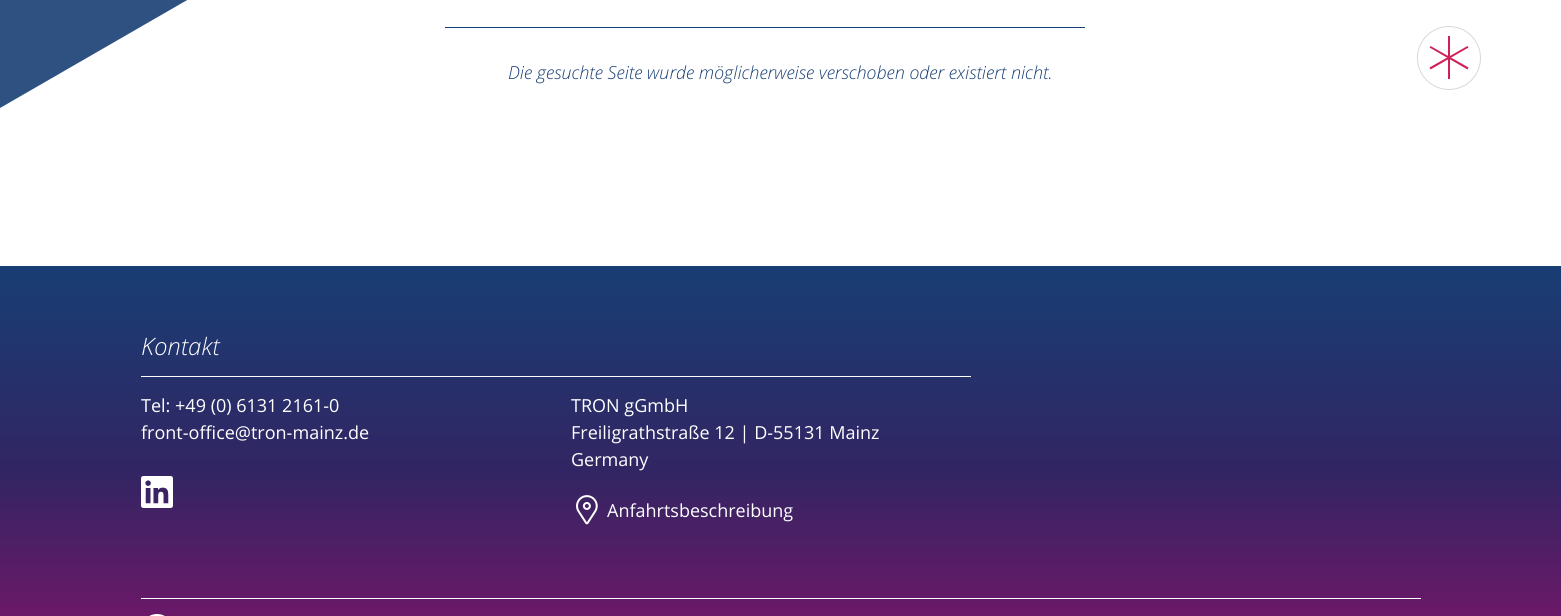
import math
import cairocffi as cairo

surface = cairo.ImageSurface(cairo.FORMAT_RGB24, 1561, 616)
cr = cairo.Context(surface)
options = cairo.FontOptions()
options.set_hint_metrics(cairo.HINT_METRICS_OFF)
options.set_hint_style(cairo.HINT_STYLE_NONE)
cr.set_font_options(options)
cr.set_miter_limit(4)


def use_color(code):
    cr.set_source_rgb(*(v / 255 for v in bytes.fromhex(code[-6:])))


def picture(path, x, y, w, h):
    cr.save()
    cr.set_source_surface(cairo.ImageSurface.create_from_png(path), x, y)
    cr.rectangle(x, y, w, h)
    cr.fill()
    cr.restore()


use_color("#ffffff")
cr.paint()
use_color("#2f5182")
cr.new_path()
cr.move_to(0, -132)
cr.line_to(416, -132)
cr.line_to(0, 108)
cr.close_path()
cr.fill()
cr.arc(1449, 58, 31.5, 0, 2 * math.pi)
use_color("#d8d8d8")
cr.set_line_width(1)
cr.stroke()
use_color("#d02056")
cr.new_path()
cr.move_to(1467.5, 46)
cr.line_to(1468.5, 47.5)
cr.line_to(1430.5, 69.5)
cr.line_to(1429.5, 67.5)
cr.close_path()
cr.fill()
cr.rectangle(1448, 36, 2, 43)
cr.fill()
cr.new_path()
cr.move_to(1429.5, 47.5)
cr.line_to(1430.5, 46)
cr.line_to(1468.5, 67.5)
cr.line_to(1467.5, 69.5)
cr.close_path()
cr.fill()
use_color("#183e74")
cr.rectangle(445, 27, 640, 1)
cr.fill()
cr.select_font_face("Open Sans Light", cairo.FONT_SLANT_ITALIC)
cr.set_font_size(18)
cr.move_to(508, 79)
cr.show_text("Die gesuchte Seite wurde möglicherweise verschoben oder existiert nicht.")
gradient = cairo.LinearGradient(781, 266, 781, 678)
gradient.add_color_stop_rgba(0, 0.094, 0.243, 0.455, 1)
gradient.add_color_stop_rgba(0.5, 0.196, 0.145, 0.388, 1)
gradient.add_color_stop_rgba(1, 0.514, 0.075, 0.412, 1)
cr.set_source(gradient)
cr.rectangle(0, 266, 1561, 350)
cr.fill()
use_color("#ffffff")
cr.rectangle(141, 376, 830, 1)
cr.fill()
cr.set_font_size(24)
cr.move_to(141, 355)
cr.show_text("Kontakt")
cr.select_font_face("Open Sans")
cr.set_font_size(18)
cr.move_to(141, 412)
cr.show_text("Tel: +49 (0) 6131 2161-0")
cr.move_to(141, 439)
cr.show_text("front-office@tron-mainz.de")
picture("img1.png", 141, 476, 32, 32)
cr.move_to(571, 412)
cr.show_text("TRON gGmbH")
cr.move_to(571, 439)
cr.show_text("Freiligrathstraße 12 | D-55131 Mainz")
cr.move_to(571, 466)
cr.show_text("Germany")
picture("img2.png", 576, 495, 22, 30)
cr.move_to(607, 517)
cr.show_text("Anfahrtsbeschreibung")
cr.rectangle(141, 598, 1280, 1)
cr.fill()
picture("img3.png", 149, 614, 16, 2)
surface.write_to_png("result.png")
